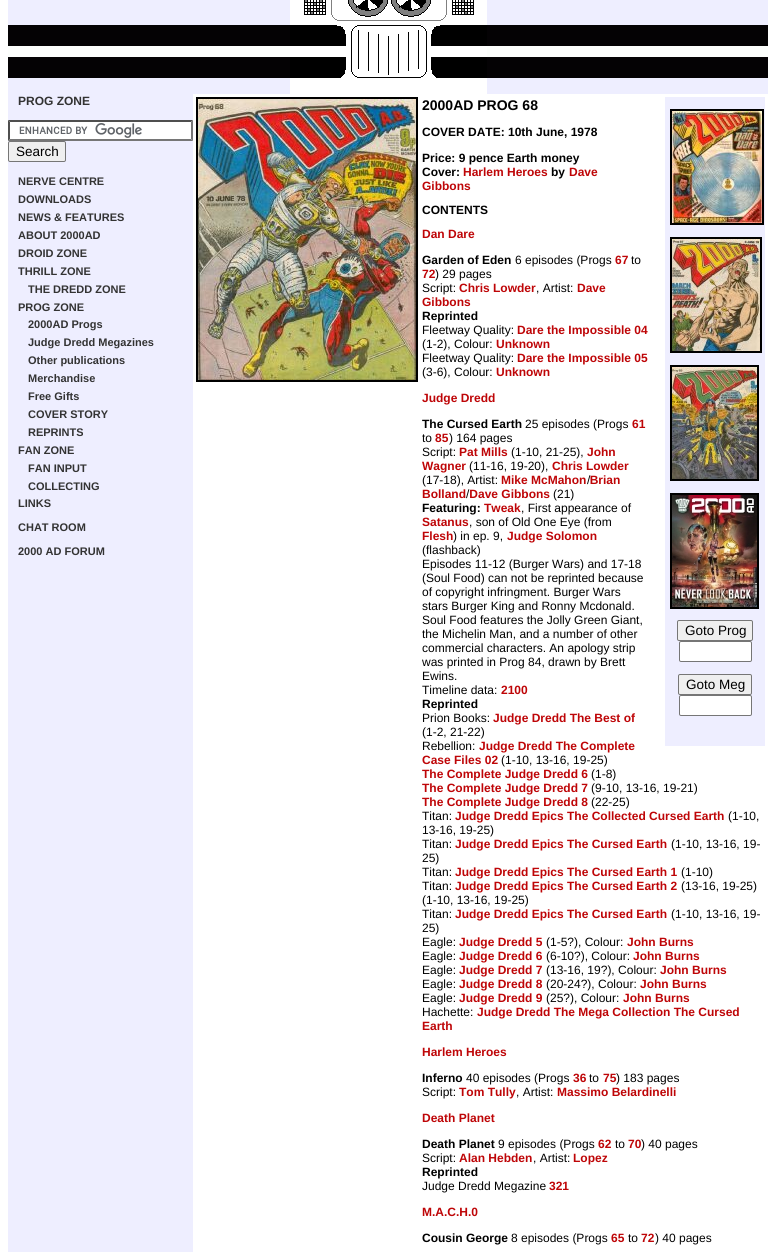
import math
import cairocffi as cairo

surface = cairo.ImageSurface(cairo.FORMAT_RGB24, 776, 1252)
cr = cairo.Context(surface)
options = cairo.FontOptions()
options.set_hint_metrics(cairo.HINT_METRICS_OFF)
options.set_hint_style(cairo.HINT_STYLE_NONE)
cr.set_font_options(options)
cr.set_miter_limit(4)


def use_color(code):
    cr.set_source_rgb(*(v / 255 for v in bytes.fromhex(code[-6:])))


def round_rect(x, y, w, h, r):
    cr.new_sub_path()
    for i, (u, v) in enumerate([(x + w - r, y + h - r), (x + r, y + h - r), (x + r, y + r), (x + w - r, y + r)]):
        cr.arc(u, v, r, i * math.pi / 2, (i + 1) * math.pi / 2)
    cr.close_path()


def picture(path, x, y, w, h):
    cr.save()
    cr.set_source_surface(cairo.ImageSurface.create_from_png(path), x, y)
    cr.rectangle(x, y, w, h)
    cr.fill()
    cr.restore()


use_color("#ffffff")
cr.paint()
use_color("#eeeeff")
cr.rectangle(8, 0, 760, 94)
cr.fill()
picture("img1.png", 8, 25, 760, 53)
picture("img2.png", 290, 0, 197, 94)
cr.rectangle(8, 94, 185, 1158)
cr.fill()
cr.select_font_face("Liberation Sans", cairo.FONT_SLANT_NORMAL, cairo.FONT_WEIGHT_BOLD)
cr.set_font_size(12)
use_color("#333333")
cr.move_to(18, 105)
cr.show_text("PROG ZONE")
use_color("#ffffff")
cr.rectangle(8, 120, 185, 21)
cr.fill()
picture("img3.png", 19, 123, 123, 15)
use_color("#4f4f4f")
cr.new_path()
cr.move_to(8, 120)
cr.line_to(193, 120)
cr.line_to(191, 122)
cr.line_to(10, 122)
cr.close_path()
cr.fill()
use_color("#767676")
cr.new_path()
cr.move_to(193, 120)
cr.line_to(193, 141)
cr.line_to(191, 139)
cr.line_to(191, 122)
cr.close_path()
cr.fill()
cr.new_path()
cr.move_to(193, 141)
cr.line_to(8, 141)
cr.line_to(10, 139)
cr.line_to(191, 139)
cr.close_path()
cr.fill()
use_color("#4f4f4f")
cr.new_path()
cr.move_to(8, 141)
cr.line_to(8, 120)
cr.line_to(10, 122)
cr.line_to(10, 139)
cr.close_path()
cr.fill()
use_color("#efefef")
round_rect(8.5, 141.5, 57, 20, 1.5)
cr.fill_preserve()
use_color("#767676")
cr.set_line_width(1)
cr.stroke()
cr.select_font_face("Liberation Sans")
cr.set_font_size(13.5)
use_color("#000000")
cr.move_to(16, 156)
cr.show_text("Search")
cr.select_font_face("Liberation Sans", cairo.FONT_SLANT_NORMAL, cairo.FONT_WEIGHT_BOLD)
cr.set_font_size(11)
use_color("#333333")
cr.move_to(18, 185)
cr.show_text("NERVE CENTRE")
cr.move_to(18, 203)
cr.show_text("DOWNLOADS")
cr.move_to(18, 221)
cr.show_text("NEWS & FEATURES")
cr.move_to(18, 239)
cr.show_text("ABOUT 2000AD")
cr.move_to(18, 257)
cr.show_text("DROID ZONE")
cr.move_to(18, 275)
cr.show_text("THRILL ZONE")
cr.move_to(28, 293)
cr.show_text("THE DREDD ZONE")
cr.move_to(18, 311)
cr.show_text("PROG ZONE")
cr.move_to(28, 328)
cr.show_text("2000AD Progs")
cr.move_to(28, 346)
cr.show_text("Judge Dredd Megazines")
cr.move_to(28, 364)
cr.show_text("Other publications")
cr.move_to(28, 382)
cr.show_text("Merchandise")
cr.move_to(28, 400)
cr.show_text("Free Gifts")
cr.move_to(28, 418)
cr.show_text("COVER STORY")
cr.move_to(28, 436)
cr.show_text("REPRINTS")
cr.move_to(18, 454)
cr.show_text("FAN ZONE")
cr.move_to(28, 472)
cr.show_text("FAN INPUT")
cr.move_to(28, 490)
cr.show_text("COLLECTING")
cr.move_to(18, 507)
cr.show_text("LINKS")
cr.move_to(18, 531)
cr.show_text("CHAT ROOM")
cr.move_to(18, 555)
cr.show_text("2000 AD FORUM")
cr.rectangle(197, 98, 220, 283)
use_color("#000000")
cr.set_line_width(2)
cr.stroke()
picture("img4.png", 198, 99, 218, 281)
cr.set_font_size(14)
cr.move_to(422, 110)
cr.show_text("2000AD PROG 68")
cr.set_font_size(12)
cr.move_to(422, 136)
cr.show_text("COVER DATE: 10th June, 1978")
cr.move_to(422, 162)
cr.show_text("Price: 9 pence Earth money")
cr.move_to(422, 176)
cr.show_text("Cover:")
use_color("#be0507")
cr.move_to(463, 176)
cr.show_text("Harlem Heroes")
use_color("#000000")
cr.move_to(551, 176)
cr.show_text("by")
use_color("#be0507")
cr.move_to(569, 176)
cr.show_text("Dave")
cr.move_to(422, 190)
cr.show_text("Gibbons")
use_color("#000000")
cr.move_to(422, 214)
cr.show_text("CONTENTS")
use_color("#be0507")
cr.move_to(422, 238)
cr.show_text("Dan Dare")
use_color("#000000")
cr.move_to(422, 264)
cr.show_text("Garden of Eden")
cr.select_font_face("Liberation Sans")
cr.move_to(515, 264)
cr.show_text("6 episodes (Progs")
cr.select_font_face("Liberation Sans", cairo.FONT_SLANT_NORMAL, cairo.FONT_WEIGHT_BOLD)
use_color("#be0507")
cr.move_to(615, 264)
cr.show_text("67")
cr.select_font_face("Liberation Sans")
use_color("#000000")
cr.move_to(631, 264)
cr.show_text("to")
cr.select_font_face("Liberation Sans", cairo.FONT_SLANT_NORMAL, cairo.FONT_WEIGHT_BOLD)
use_color("#be0507")
cr.move_to(422, 278)
cr.show_text("72")
cr.select_font_face("Liberation Sans")
use_color("#000000")
cr.move_to(435, 278)
cr.show_text(") 29 pages")
cr.move_to(422, 292)
cr.show_text("Script:")
cr.select_font_face("Liberation Sans", cairo.FONT_SLANT_NORMAL, cairo.FONT_WEIGHT_BOLD)
use_color("#be0507")
cr.move_to(459, 292)
cr.show_text("Chris Lowder")
cr.select_font_face("Liberation Sans")
use_color("#000000")
cr.move_to(536, 292)
cr.show_text(", Artist:")
cr.select_font_face("Liberation Sans", cairo.FONT_SLANT_NORMAL, cairo.FONT_WEIGHT_BOLD)
use_color("#be0507")
cr.move_to(577, 292)
cr.show_text("Dave")
cr.move_to(422, 306)
cr.show_text("Gibbons")
use_color("#000000")
cr.move_to(422, 320)
cr.show_text("Reprinted")
cr.select_font_face("Liberation Sans")
cr.move_to(422, 334)
cr.show_text("Fleetway Quality:")
cr.select_font_face("Liberation Sans", cairo.FONT_SLANT_NORMAL, cairo.FONT_WEIGHT_BOLD)
use_color("#be0507")
cr.move_to(517, 334)
cr.show_text("Dare the Impossible 04")
cr.select_font_face("Liberation Sans")
use_color("#000000")
cr.move_to(422, 348)
cr.show_text("(1-2), Colour:")
cr.select_font_face("Liberation Sans", cairo.FONT_SLANT_NORMAL, cairo.FONT_WEIGHT_BOLD)
use_color("#be0507")
cr.move_to(496, 348)
cr.show_text("Unknown")
cr.select_font_face("Liberation Sans")
use_color("#000000")
cr.move_to(422, 362)
cr.show_text("Fleetway Quality:")
cr.select_font_face("Liberation Sans", cairo.FONT_SLANT_NORMAL, cairo.FONT_WEIGHT_BOLD)
use_color("#be0507")
cr.move_to(517, 362)
cr.show_text("Dare the Impossible 05")
cr.select_font_face("Liberation Sans")
use_color("#000000")
cr.move_to(422, 376)
cr.show_text("(3-6), Colour:")
cr.select_font_face("Liberation Sans", cairo.FONT_SLANT_NORMAL, cairo.FONT_WEIGHT_BOLD)
use_color("#be0507")
cr.move_to(496, 376)
cr.show_text("Unknown")
cr.move_to(422, 402)
cr.show_text("Judge Dredd")
use_color("#000000")
cr.move_to(422, 428)
cr.show_text("The Cursed Earth")
cr.select_font_face("Liberation Sans")
cr.move_to(525, 428)
cr.show_text("25 episodes (Progs")
cr.select_font_face("Liberation Sans", cairo.FONT_SLANT_NORMAL, cairo.FONT_WEIGHT_BOLD)
use_color("#be0507")
cr.move_to(632, 428)
cr.show_text("61")
cr.select_font_face("Liberation Sans")
use_color("#000000")
cr.move_to(422, 442)
cr.show_text("to")
cr.select_font_face("Liberation Sans", cairo.FONT_SLANT_NORMAL, cairo.FONT_WEIGHT_BOLD)
use_color("#be0507")
cr.move_to(435, 442)
cr.show_text("85")
cr.select_font_face("Liberation Sans")
use_color("#000000")
cr.move_to(449, 442)
cr.show_text(") 164 pages")
cr.move_to(422, 456)
cr.show_text("Script:")
cr.select_font_face("Liberation Sans", cairo.FONT_SLANT_NORMAL, cairo.FONT_WEIGHT_BOLD)
use_color("#be0507")
cr.move_to(459, 456)
cr.show_text("Pat Mills")
cr.select_font_face("Liberation Sans")
use_color("#000000")
cr.move_to(511, 456)
cr.show_text("(1-10, 21-25),")
cr.select_font_face("Liberation Sans", cairo.FONT_SLANT_NORMAL, cairo.FONT_WEIGHT_BOLD)
use_color("#be0507")
cr.move_to(587, 456)
cr.show_text("John")
cr.move_to(422, 470)
cr.show_text("Wagner")
cr.select_font_face("Liberation Sans")
use_color("#000000")
cr.move_to(469, 470)
cr.show_text("(11-16, 19-20),")
cr.select_font_face("Liberation Sans", cairo.FONT_SLANT_NORMAL, cairo.FONT_WEIGHT_BOLD)
use_color("#be0507")
cr.move_to(552, 470)
cr.show_text("Chris Lowder")
cr.select_font_face("Liberation Sans")
use_color("#000000")
cr.move_to(422, 484)
cr.show_text("(17-18), Artist:")
cr.select_font_face("Liberation Sans", cairo.FONT_SLANT_NORMAL, cairo.FONT_WEIGHT_BOLD)
use_color("#be0507")
cr.move_to(501, 484)
cr.show_text("Mike McMahon Brian")
cr.select_font_face("Liberation Sans")
use_color("#000000")
cr.move_to(587, 484)
cr.show_text("/")
cr.select_font_face("Liberation Sans", cairo.FONT_SLANT_NORMAL, cairo.FONT_WEIGHT_BOLD)
use_color("#be0507")
cr.move_to(422, 498)
cr.show_text("Bolland Dave Gibbons")
cr.select_font_face("Liberation Sans")
use_color("#000000")
cr.move_to(466, 498)
cr.show_text("/")
cr.move_to(553, 498)
cr.show_text("(21)")
cr.select_font_face("Liberation Sans", cairo.FONT_SLANT_NORMAL, cairo.FONT_WEIGHT_BOLD)
cr.move_to(422, 512)
cr.show_text("Featuring:")
use_color("#be0507")
cr.move_to(484, 512)
cr.show_text("Tweak")
cr.select_font_face("Liberation Sans")
use_color("#000000")
cr.move_to(521, 512)
cr.show_text(", First appearance of")
cr.select_font_face("Liberation Sans", cairo.FONT_SLANT_NORMAL, cairo.FONT_WEIGHT_BOLD)
use_color("#be0507")
cr.move_to(422, 526)
cr.show_text("Satanus")
cr.select_font_face("Liberation Sans")
use_color("#000000")
cr.move_to(469, 526)
cr.show_text(", son of Old One Eye (from")
cr.select_font_face("Liberation Sans", cairo.FONT_SLANT_NORMAL, cairo.FONT_WEIGHT_BOLD)
use_color("#be0507")
cr.move_to(422, 540)
cr.show_text("Flesh")
cr.select_font_face("Liberation Sans")
use_color("#000000")
cr.move_to(453, 540)
cr.show_text(") in ep. 9,")
cr.select_font_face("Liberation Sans", cairo.FONT_SLANT_NORMAL, cairo.FONT_WEIGHT_BOLD)
use_color("#be0507")
cr.move_to(507, 540)
cr.show_text("Judge Solomon")
cr.select_font_face("Liberation Sans")
use_color("#000000")
cr.move_to(422, 554)
cr.show_text("(flashback)")
cr.move_to(422, 568)
cr.show_text("Episodes 11-12 (Burger Wars) and 17-18")
cr.move_to(422, 582)
cr.show_text("(Soul Food) can not be reprinted because")
cr.move_to(422, 596)
cr.show_text("of copyright infringment. Burger Wars")
cr.move_to(422, 610)
cr.show_text("stars Burger King and Ronny Mcdonald.")
cr.move_to(422, 624)
cr.show_text("Soul Food features the Jolly Green Giant,")
cr.move_to(422, 638)
cr.show_text("the Michelin Man, and a number of other")
cr.move_to(422, 652)
cr.show_text("commercial characters. An apology strip")
cr.move_to(422, 666)
cr.show_text("was printed in Prog 84, drawn by Brett")
cr.move_to(422, 680)
cr.show_text("Ewins.")
cr.move_to(422, 694)
cr.show_text("Timeline data:")
cr.select_font_face("Liberation Sans", cairo.FONT_SLANT_NORMAL, cairo.FONT_WEIGHT_BOLD)
use_color("#be0507")
cr.move_to(501, 694)
cr.show_text("2100")
use_color("#000000")
cr.move_to(422, 708)
cr.show_text("Reprinted")
cr.select_font_face("Liberation Sans")
cr.move_to(422, 722)
cr.show_text("Prion Books:")
cr.select_font_face("Liberation Sans", cairo.FONT_SLANT_NORMAL, cairo.FONT_WEIGHT_BOLD)
use_color("#be0507")
cr.move_to(493, 722)
cr.show_text("Judge Dredd The Best of")
cr.select_font_face("Liberation Sans")
use_color("#000000")
cr.move_to(422, 736)
cr.show_text("(1-2, 21-22)")
cr.move_to(422, 750)
cr.show_text("Rebellion:")
cr.select_font_face("Liberation Sans", cairo.FONT_SLANT_NORMAL, cairo.FONT_WEIGHT_BOLD)
use_color("#be0507")
cr.move_to(479, 750)
cr.show_text("Judge Dredd The Complete")
cr.move_to(422, 764)
cr.show_text("Case Files 02")
cr.select_font_face("Liberation Sans")
use_color("#000000")
cr.move_to(501, 764)
cr.show_text("(1-10, 13-16, 19-25)")
cr.select_font_face("Liberation Sans", cairo.FONT_SLANT_NORMAL, cairo.FONT_WEIGHT_BOLD)
use_color("#be0507")
cr.move_to(422, 778)
cr.show_text("The Complete Judge Dredd 6")
cr.select_font_face("Liberation Sans")
use_color("#000000")
cr.move_to(591, 778)
cr.show_text("(1-8)")
cr.select_font_face("Liberation Sans", cairo.FONT_SLANT_NORMAL, cairo.FONT_WEIGHT_BOLD)
use_color("#be0507")
cr.move_to(422, 792)
cr.show_text("The Complete Judge Dredd 7")
cr.select_font_face("Liberation Sans")
use_color("#000000")
cr.move_to(591, 792)
cr.show_text("(9-10, 13-16, 19-21)")
cr.select_font_face("Liberation Sans", cairo.FONT_SLANT_NORMAL, cairo.FONT_WEIGHT_BOLD)
use_color("#be0507")
cr.move_to(422, 806)
cr.show_text("The Complete Judge Dredd 8")
cr.select_font_face("Liberation Sans")
use_color("#000000")
cr.move_to(591, 806)
cr.show_text("(22-25)")
cr.move_to(422, 820)
cr.show_text("Titan:")
cr.select_font_face("Liberation Sans", cairo.FONT_SLANT_NORMAL, cairo.FONT_WEIGHT_BOLD)
use_color("#be0507")
cr.move_to(455, 820)
cr.show_text("Judge Dredd Epics The Collected Cursed Earth")
cr.select_font_face("Liberation Sans")
use_color("#000000")
cr.move_to(728, 820)
cr.show_text("(1-10,")
cr.move_to(422, 834)
cr.show_text("13-16, 19-25)")
cr.move_to(422, 848)
cr.show_text("Titan:")
cr.select_font_face("Liberation Sans", cairo.FONT_SLANT_NORMAL, cairo.FONT_WEIGHT_BOLD)
use_color("#be0507")
cr.move_to(455, 848)
cr.show_text("Judge Dredd Epics The Cursed Earth")
cr.select_font_face("Liberation Sans")
use_color("#000000")
cr.move_to(671, 848)
cr.show_text("(1-10, 13-16, 19-")
cr.move_to(422, 862)
cr.show_text("25)")
cr.move_to(422, 876)
cr.show_text("Titan:")
cr.select_font_face("Liberation Sans", cairo.FONT_SLANT_NORMAL, cairo.FONT_WEIGHT_BOLD)
use_color("#be0507")
cr.move_to(455, 876)
cr.show_text("Judge Dredd Epics The Cursed Earth 1")
cr.select_font_face("Liberation Sans")
use_color("#000000")
cr.move_to(681, 876)
cr.show_text("(1-10)")
cr.move_to(422, 890)
cr.show_text("Titan:")
cr.select_font_face("Liberation Sans", cairo.FONT_SLANT_NORMAL, cairo.FONT_WEIGHT_BOLD)
use_color("#be0507")
cr.move_to(455, 890)
cr.show_text("Judge Dredd Epics The Cursed Earth 2")
cr.select_font_face("Liberation Sans")
use_color("#000000")
cr.move_to(681, 890)
cr.show_text("(13-16, 19-25)")
cr.move_to(422, 904)
cr.show_text("(1-10, 13-16, 19-25)")
cr.move_to(422, 918)
cr.show_text("Titan:")
cr.select_font_face("Liberation Sans", cairo.FONT_SLANT_NORMAL, cairo.FONT_WEIGHT_BOLD)
use_color("#be0507")
cr.move_to(455, 918)
cr.show_text("Judge Dredd Epics The Cursed Earth")
cr.select_font_face("Liberation Sans")
use_color("#000000")
cr.move_to(671, 918)
cr.show_text("(1-10, 13-16, 19-")
cr.move_to(422, 932)
cr.show_text("25)")
cr.move_to(422, 946)
cr.show_text("Eagle:")
cr.select_font_face("Liberation Sans", cairo.FONT_SLANT_NORMAL, cairo.FONT_WEIGHT_BOLD)
use_color("#be0507")
cr.move_to(459, 946)
cr.show_text("Judge Dredd 5")
cr.select_font_face("Liberation Sans")
use_color("#000000")
cr.move_to(546, 946)
cr.show_text("(1-5?), Colour:")
cr.select_font_face("Liberation Sans", cairo.FONT_SLANT_NORMAL, cairo.FONT_WEIGHT_BOLD)
use_color("#be0507")
cr.move_to(627, 946)
cr.show_text("John Burns")
cr.select_font_face("Liberation Sans")
use_color("#000000")
cr.move_to(422, 960)
cr.show_text("Eagle:")
cr.select_font_face("Liberation Sans", cairo.FONT_SLANT_NORMAL, cairo.FONT_WEIGHT_BOLD)
use_color("#be0507")
cr.move_to(459, 960)
cr.show_text("Judge Dredd 6")
cr.select_font_face("Liberation Sans")
use_color("#000000")
cr.move_to(546, 960)
cr.show_text("(6-10?), Colour:")
cr.select_font_face("Liberation Sans", cairo.FONT_SLANT_NORMAL, cairo.FONT_WEIGHT_BOLD)
use_color("#be0507")
cr.move_to(633, 960)
cr.show_text("John Burns")
cr.select_font_face("Liberation Sans")
use_color("#000000")
cr.move_to(422, 974)
cr.show_text("Eagle:")
cr.select_font_face("Liberation Sans", cairo.FONT_SLANT_NORMAL, cairo.FONT_WEIGHT_BOLD)
use_color("#be0507")
cr.move_to(459, 974)
cr.show_text("Judge Dredd 7")
cr.select_font_face("Liberation Sans")
use_color("#000000")
cr.move_to(546, 974)
cr.show_text("(13-16, 19?), Colour:")
cr.select_font_face("Liberation Sans", cairo.FONT_SLANT_NORMAL, cairo.FONT_WEIGHT_BOLD)
use_color("#be0507")
cr.move_to(660, 974)
cr.show_text("John Burns")
cr.select_font_face("Liberation Sans")
use_color("#000000")
cr.move_to(422, 988)
cr.show_text("Eagle:")
cr.select_font_face("Liberation Sans", cairo.FONT_SLANT_NORMAL, cairo.FONT_WEIGHT_BOLD)
use_color("#be0507")
cr.move_to(459, 988)
cr.show_text("Judge Dredd 8")
cr.select_font_face("Liberation Sans")
use_color("#000000")
cr.move_to(546, 988)
cr.show_text("(20-24?), Colour:")
cr.select_font_face("Liberation Sans", cairo.FONT_SLANT_NORMAL, cairo.FONT_WEIGHT_BOLD)
use_color("#be0507")
cr.move_to(640, 988)
cr.show_text("John Burns")
cr.select_font_face("Liberation Sans")
use_color("#000000")
cr.move_to(422, 1002)
cr.show_text("Eagle:")
cr.select_font_face("Liberation Sans", cairo.FONT_SLANT_NORMAL, cairo.FONT_WEIGHT_BOLD)
use_color("#be0507")
cr.move_to(459, 1002)
cr.show_text("Judge Dredd 9")
cr.select_font_face("Liberation Sans")
use_color("#000000")
cr.move_to(546, 1002)
cr.show_text("(25?), Colour:")
cr.select_font_face("Liberation Sans", cairo.FONT_SLANT_NORMAL, cairo.FONT_WEIGHT_BOLD)
use_color("#be0507")
cr.move_to(623, 1002)
cr.show_text("John Burns")
cr.select_font_face("Liberation Sans")
use_color("#000000")
cr.move_to(422, 1016)
cr.show_text("Hachette:")
cr.select_font_face("Liberation Sans", cairo.FONT_SLANT_NORMAL, cairo.FONT_WEIGHT_BOLD)
use_color("#be0507")
cr.move_to(477, 1016)
cr.show_text("Judge Dredd The Mega Collection The Cursed")
cr.move_to(422, 1030)
cr.show_text("Earth")
use_color("#eeeeff")
cr.rectangle(665, 97, 100, 649)
cr.fill()
cr.rectangle(671, 110, 92, 114)
use_color("#000000")
cr.stroke()
picture("img5.png", 672, 111, 90, 112)
cr.rectangle(671, 238, 90, 114)
cr.stroke()
picture("img6.png", 672, 239, 88, 112)
cr.rectangle(671, 366, 87, 114)
cr.stroke()
picture("img7.png", 672, 367, 85, 112)
cr.rectangle(671, 494, 87, 114)
cr.stroke()
picture("img8.png", 672, 495, 85, 112)
use_color("#efefef")
round_rect(677.5, 620.5, 75, 20, 1.5)
cr.fill_preserve()
use_color("#767676")
cr.set_line_width(1)
cr.stroke()
cr.select_font_face("Liberation Sans")
cr.set_font_size(13.5)
use_color("#000000")
cr.move_to(685, 635)
cr.show_text("Goto Prog")
use_color("#ffffff")
round_rect(679.5, 641.5, 72, 20, 1.5)
cr.fill_preserve()
use_color("#767676")
cr.stroke()
use_color("#efefef")
round_rect(678.5, 674.5, 73, 20, 1.5)
cr.fill_preserve()
use_color("#767676")
cr.stroke()
use_color("#000000")
cr.move_to(686, 689)
cr.show_text("Goto Meg")
use_color("#ffffff")
round_rect(679.5, 695.5, 72, 20, 1.5)
cr.fill_preserve()
use_color("#767676")
cr.stroke()
cr.select_font_face("Liberation Sans", cairo.FONT_SLANT_NORMAL, cairo.FONT_WEIGHT_BOLD)
cr.set_font_size(12)
use_color("#be0507")
cr.move_to(422, 1056)
cr.show_text("Harlem Heroes")
use_color("#000000")
cr.move_to(422, 1082)
cr.show_text("Inferno")
cr.select_font_face("Liberation Sans")
cr.move_to(466, 1082)
cr.show_text("40 episodes (Progs")
cr.select_font_face("Liberation Sans", cairo.FONT_SLANT_NORMAL, cairo.FONT_WEIGHT_BOLD)
use_color("#be0507")
cr.move_to(573, 1082)
cr.show_text("36")
cr.select_font_face("Liberation Sans")
use_color("#000000")
cr.move_to(589, 1082)
cr.show_text("to")
cr.select_font_face("Liberation Sans", cairo.FONT_SLANT_NORMAL, cairo.FONT_WEIGHT_BOLD)
use_color("#be0507")
cr.move_to(603, 1082)
cr.show_text("75")
cr.select_font_face("Liberation Sans")
use_color("#000000")
cr.move_to(616, 1082)
cr.show_text(") 183 pages")
cr.move_to(422, 1096)
cr.show_text("Script:")
cr.select_font_face("Liberation Sans", cairo.FONT_SLANT_NORMAL, cairo.FONT_WEIGHT_BOLD)
use_color("#be0507")
cr.move_to(459, 1096)
cr.show_text("Tom Tully")
cr.select_font_face("Liberation Sans")
use_color("#000000")
cr.move_to(516, 1096)
cr.show_text(", Artist:")
cr.select_font_face("Liberation Sans", cairo.FONT_SLANT_NORMAL, cairo.FONT_WEIGHT_BOLD)
use_color("#be0507")
cr.move_to(557, 1096)
cr.show_text("Massimo Belardinelli")
cr.move_to(422, 1122)
cr.show_text("Death Planet")
use_color("#000000")
cr.move_to(422, 1148)
cr.show_text("Death Planet")
cr.select_font_face("Liberation Sans")
cr.move_to(498, 1148)
cr.show_text("9 episodes (Progs")
cr.select_font_face("Liberation Sans", cairo.FONT_SLANT_NORMAL, cairo.FONT_WEIGHT_BOLD)
use_color("#be0507")
cr.move_to(598, 1148)
cr.show_text("62")
cr.select_font_face("Liberation Sans")
use_color("#000000")
cr.move_to(615, 1148)
cr.show_text("to")
cr.select_font_face("Liberation Sans", cairo.FONT_SLANT_NORMAL, cairo.FONT_WEIGHT_BOLD)
use_color("#be0507")
cr.move_to(628, 1148)
cr.show_text("70")
cr.select_font_face("Liberation Sans")
use_color("#000000")
cr.move_to(641, 1148)
cr.show_text(") 40 pages")
cr.move_to(422, 1162)
cr.show_text("Script:")
cr.select_font_face("Liberation Sans", cairo.FONT_SLANT_NORMAL, cairo.FONT_WEIGHT_BOLD)
use_color("#be0507")
cr.move_to(459, 1162)
cr.show_text("Alan Hebden")
cr.select_font_face("Liberation Sans")
use_color("#000000")
cr.move_to(533, 1162)
cr.show_text(", Artist:")
cr.select_font_face("Liberation Sans", cairo.FONT_SLANT_NORMAL, cairo.FONT_WEIGHT_BOLD)
use_color("#be0507")
cr.move_to(573, 1162)
cr.show_text("Lopez")
use_color("#000000")
cr.move_to(422, 1176)
cr.show_text("Reprinted")
cr.select_font_face("Liberation Sans")
cr.move_to(422, 1190)
cr.show_text("Judge Dredd Megazine")
cr.select_font_face("Liberation Sans", cairo.FONT_SLANT_NORMAL, cairo.FONT_WEIGHT_BOLD)
use_color("#be0507")
cr.move_to(549, 1190)
cr.show_text("321")
cr.move_to(422, 1216)
cr.show_text("M.A.C.H.0")
use_color("#000000")
cr.move_to(422, 1242)
cr.show_text("Cousin George")
cr.select_font_face("Liberation Sans")
cr.move_to(511, 1242)
cr.show_text("8 episodes (Progs")
cr.select_font_face("Liberation Sans", cairo.FONT_SLANT_NORMAL, cairo.FONT_WEIGHT_BOLD)
use_color("#be0507")
cr.move_to(611, 1242)
cr.show_text("65")
cr.select_font_face("Liberation Sans")
use_color("#000000")
cr.move_to(628, 1242)
cr.show_text("to")
cr.select_font_face("Liberation Sans", cairo.FONT_SLANT_NORMAL, cairo.FONT_WEIGHT_BOLD)
use_color("#be0507")
cr.move_to(641, 1242)
cr.show_text("72")
cr.select_font_face("Liberation Sans")
use_color("#000000")
cr.move_to(655, 1242)
cr.show_text(") 40 pages")
surface.write_to_png("result.png")
